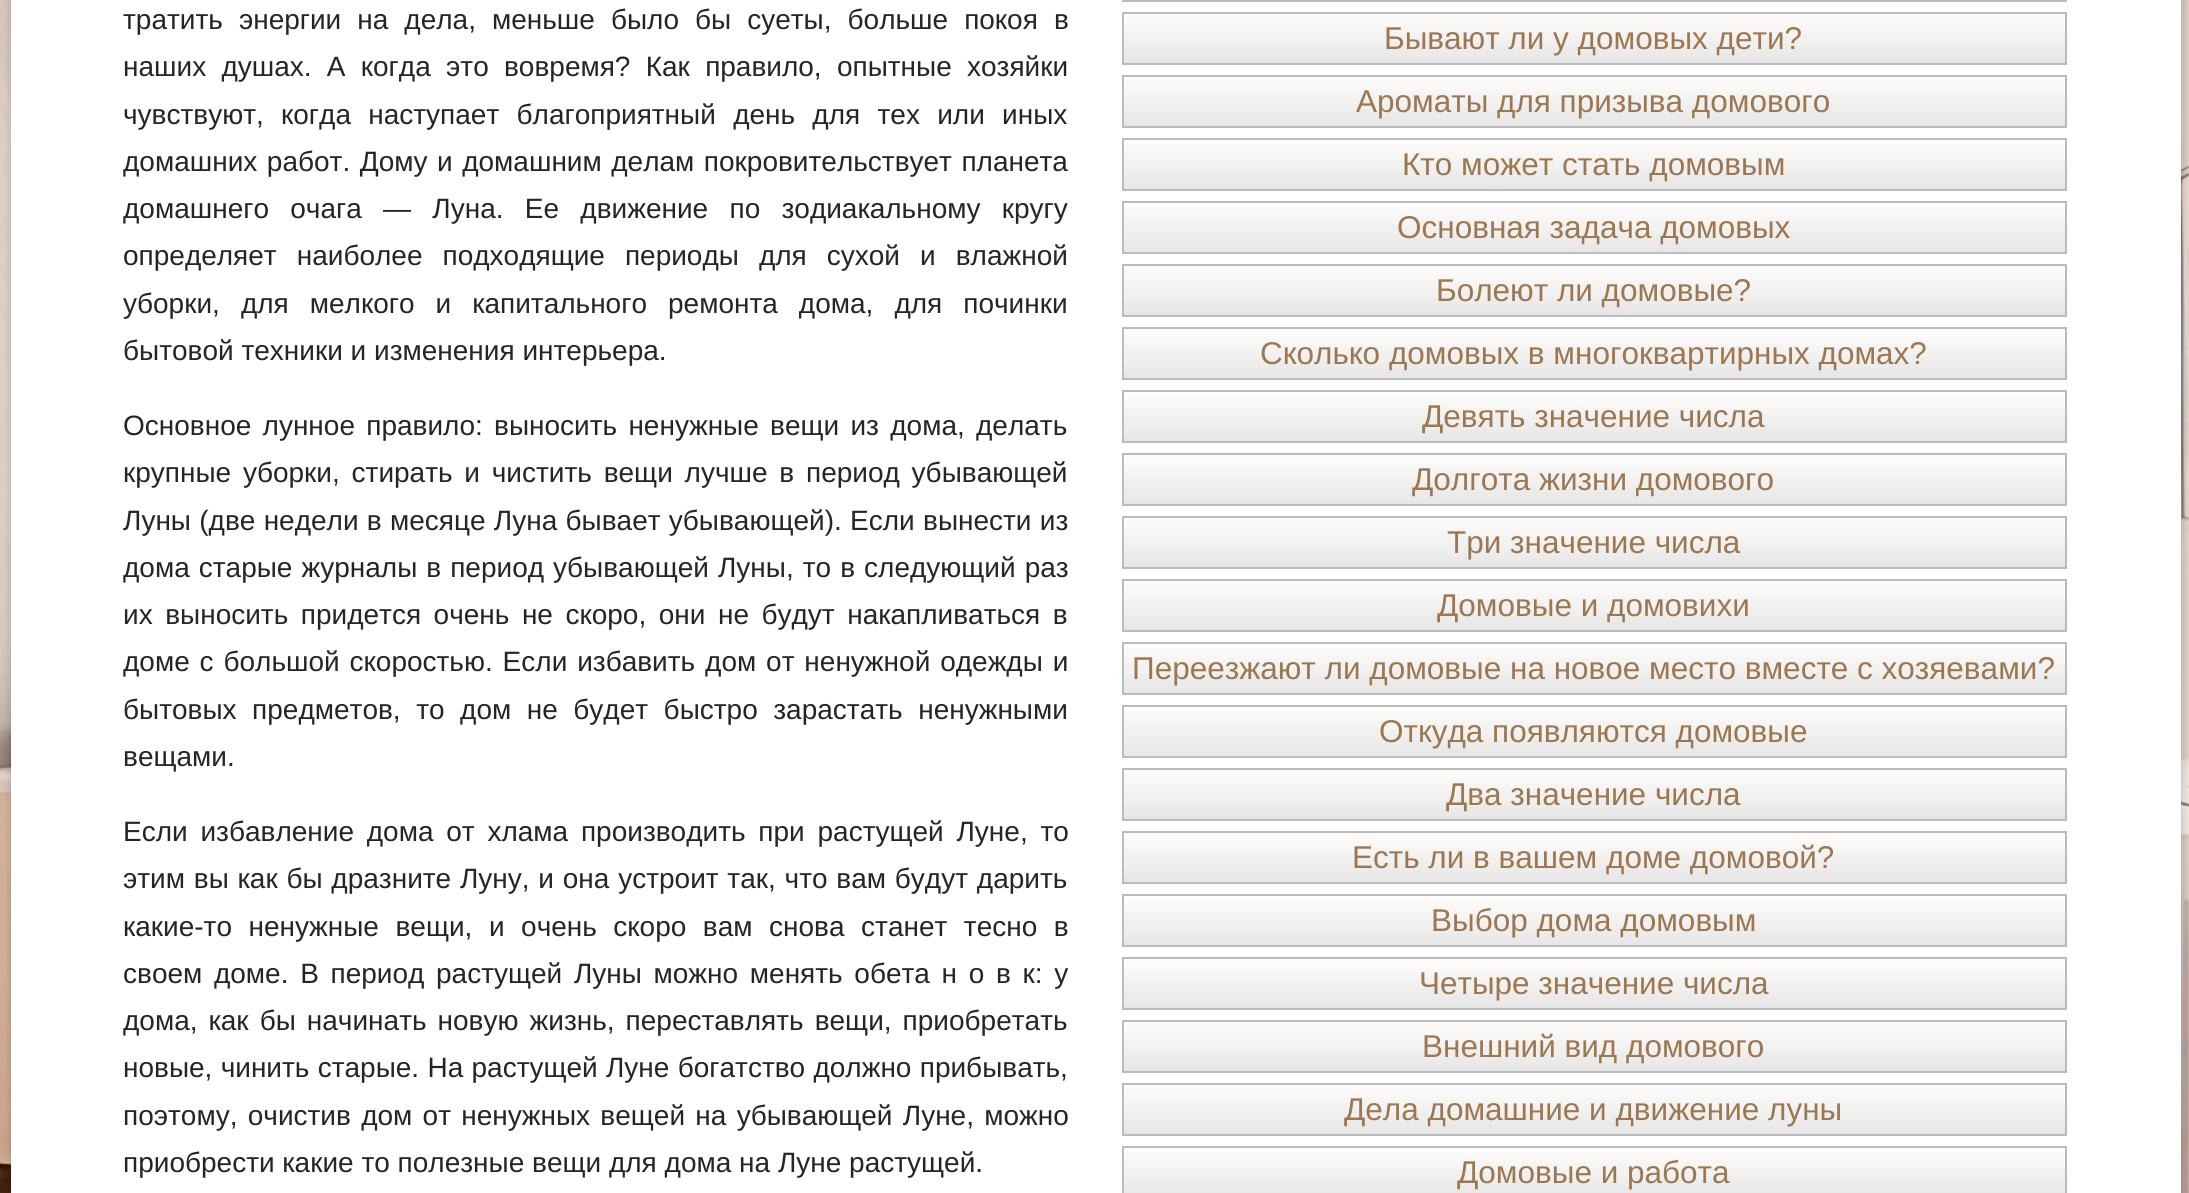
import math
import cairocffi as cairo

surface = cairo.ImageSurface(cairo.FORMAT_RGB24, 2189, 1193)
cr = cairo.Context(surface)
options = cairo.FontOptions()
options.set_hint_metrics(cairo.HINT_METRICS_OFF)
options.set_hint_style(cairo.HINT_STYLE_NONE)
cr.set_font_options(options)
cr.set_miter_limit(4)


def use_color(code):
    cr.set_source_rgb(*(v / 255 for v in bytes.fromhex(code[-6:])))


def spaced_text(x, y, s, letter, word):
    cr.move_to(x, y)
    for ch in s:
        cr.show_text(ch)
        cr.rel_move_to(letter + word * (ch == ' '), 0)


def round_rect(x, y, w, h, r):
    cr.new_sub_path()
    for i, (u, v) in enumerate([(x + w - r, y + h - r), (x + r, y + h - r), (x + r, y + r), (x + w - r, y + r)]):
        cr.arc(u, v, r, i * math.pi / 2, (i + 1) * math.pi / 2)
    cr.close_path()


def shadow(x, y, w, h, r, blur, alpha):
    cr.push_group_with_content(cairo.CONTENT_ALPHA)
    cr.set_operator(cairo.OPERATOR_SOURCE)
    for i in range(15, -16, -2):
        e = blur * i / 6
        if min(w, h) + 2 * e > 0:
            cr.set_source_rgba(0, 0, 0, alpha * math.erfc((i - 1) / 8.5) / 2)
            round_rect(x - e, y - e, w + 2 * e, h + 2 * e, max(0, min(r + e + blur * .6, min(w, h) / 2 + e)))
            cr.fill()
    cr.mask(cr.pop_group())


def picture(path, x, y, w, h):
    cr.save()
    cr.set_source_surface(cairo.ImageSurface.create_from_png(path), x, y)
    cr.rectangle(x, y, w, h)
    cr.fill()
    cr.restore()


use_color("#ffffff")
cr.paint()
picture("img1.png", 0, 0, 2189, 1193)
use_color("#000000")
shadow(11, -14, 2170, 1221, 0, 4.5, 0.2)
use_color("#ffffff")
cr.rectangle(11, 0, 2170, 1193)
cr.fill()
cr.select_font_face("Liberation Sans")
cr.set_font_size(28)
use_color("#252525")
spaced_text(123, 29, "тратить энергии на дела, меньше было бы суеты, больше покоя в", 0, 8.25)
spaced_text(123, 76, "наших душах. А когда это вовремя? Как правило, опытные хозяйки", 0, 7.5)
spaced_text(123, 124, "чувствуют, когда наступает благоприятный день для тех или иных", 0, 9.5)
spaced_text(123, 171, "домашних работ. Дому и домашним делам покровительствует планета", 0, 1.75)
spaced_text(123, 218, "домашнего очага — Луна. Ее движение по зодиакальному кругу", 0, 13.5)
spaced_text(123, 265, "определяет наиболее подходящие периоды для сухой и влажной", 0, 12.25)
spaced_text(123, 313, "уборки, для мелкого и капитального ремонта дома, для починки", 0, 13.25)
cr.move_to(123, 360)
cr.show_text("бытовой техники и изменения интерьера.")
spaced_text(123, 435, "Основное лунное правило: выносить ненужные вещи из дома, делать", 0, 3.5)
spaced_text(123, 482, "крупные уборки, стирать и чистить вещи лучше в период убывающей", 0, 4)
spaced_text(123, 530, "Луны (две недели в месяце Луна бывает убывающей). Если вынести из", 0, 0.5)
spaced_text(123, 577, "дома старые журналы в период убывающей Луны, то в следующий раз", 0, 1.25)
spaced_text(123, 624, "их выносить придется очень не скоро, они не будут накапливаться в", 0, 4.75)
spaced_text(123, 671, "доме с большой скоростью. Если избавить дом от ненужной одежды и", 0, 2.1)
spaced_text(123, 719, "бытовых предметов, то дом не будет быстро зарастать ненужными", 0, 7.75)
cr.move_to(123, 766)
cr.show_text("вещами.")
spaced_text(123, 841, "Если избавление дома от хлама производить при растущей Луне, то", 0, 5)
spaced_text(123, 888, "этим вы как бы дразните Луну, и она устроит так, что вам будут дарить", 0, 1)
spaced_text(123, 936, "какие-то ненужные вещи, и очень скоро вам снова станет тесно в", 0, 8.75)
spaced_text(123, 983, "своем доме. В период растущей Луны можно менять обета н о в к: у", 0, 3.9)
spaced_text(123, 1030, "дома, как бы начинать новую жизнь, переставлять вещи, приобретать", 0, 3.25)
spaced_text(123, 1077, "новые, чинить старые. На растущей Луне богатство должно прибывать,", 0, 0.5)
spaced_text(123, 1125, "поэтому, очистив дом от ненужных вещей на убывающей Луне, можно", 0, 2.5)
cr.move_to(123, 1172)
cr.show_text("приобрести какие то полезные вещи для дома на Луне растущей.")
cr.rectangle(1123, -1, 943, 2)
use_color("#bbbbbb")
cr.stroke()
gradient = cairo.LinearGradient(1594, 14, 1594, 63)
gradient.add_color_stop_rgba(0, 0.996, 0.992, 0.984, 1)
gradient.add_color_stop_rgba(1, 0.902, 0.902, 0.902, 1)
cr.set_source(gradient)
cr.rectangle(1124, 14, 941, 49)
cr.fill()
cr.rectangle(1123, 13, 943, 51)
use_color("#bbbbbb")
cr.stroke()
cr.set_font_size(31.5)
use_color("#9c7751")
cr.move_to(1384, 49)
cr.show_text("Бывают ли у домовых дети?")
gradient = cairo.LinearGradient(1594, 77, 1594, 126)
gradient.add_color_stop_rgba(0, 0.996, 0.992, 0.984, 1)
gradient.add_color_stop_rgba(1, 0.902, 0.902, 0.902, 1)
cr.set_source(gradient)
cr.rectangle(1124, 77, 941, 49)
cr.fill()
cr.rectangle(1123, 76, 943, 51)
use_color("#bbbbbb")
cr.stroke()
use_color("#9c7751")
cr.move_to(1356, 112)
cr.show_text("Ароматы для призыва домового")
gradient = cairo.LinearGradient(1594, 140, 1594, 189)
gradient.add_color_stop_rgba(0, 0.996, 0.992, 0.984, 1)
gradient.add_color_stop_rgba(1, 0.902, 0.902, 0.902, 1)
cr.set_source(gradient)
cr.rectangle(1124, 140, 941, 49)
cr.fill()
cr.rectangle(1123, 139, 943, 51)
use_color("#bbbbbb")
cr.stroke()
use_color("#9c7751")
cr.move_to(1402, 175)
cr.show_text("Кто может стать домовым")
gradient = cairo.LinearGradient(1594, 203, 1594, 252)
gradient.add_color_stop_rgba(0, 0.996, 0.992, 0.984, 1)
gradient.add_color_stop_rgba(1, 0.902, 0.902, 0.902, 1)
cr.set_source(gradient)
cr.rectangle(1124, 203, 941, 49)
cr.fill()
cr.rectangle(1123, 202, 943, 51)
use_color("#bbbbbb")
cr.stroke()
use_color("#9c7751")
cr.move_to(1397, 238)
cr.show_text("Основная задача домовых")
gradient = cairo.LinearGradient(1594, 266, 1594, 315)
gradient.add_color_stop_rgba(0, 0.996, 0.992, 0.984, 1)
gradient.add_color_stop_rgba(1, 0.902, 0.902, 0.902, 1)
cr.set_source(gradient)
cr.rectangle(1124, 266, 941, 49)
cr.fill()
cr.rectangle(1123, 265, 943, 51)
use_color("#bbbbbb")
cr.stroke()
use_color("#9c7751")
cr.move_to(1436, 301)
cr.show_text("Болеют ли домовые?")
gradient = cairo.LinearGradient(1594, 329, 1594, 378)
gradient.add_color_stop_rgba(0, 0.996, 0.992, 0.984, 1)
gradient.add_color_stop_rgba(1, 0.902, 0.902, 0.902, 1)
cr.set_source(gradient)
cr.rectangle(1124, 329, 941, 49)
cr.fill()
cr.rectangle(1123, 328, 943, 51)
use_color("#bbbbbb")
cr.stroke()
use_color("#9c7751")
cr.move_to(1260, 364)
cr.show_text("Сколько домовых в многоквартирных домах?")
gradient = cairo.LinearGradient(1594, 392, 1594, 441)
gradient.add_color_stop_rgba(0, 0.996, 0.992, 0.984, 1)
gradient.add_color_stop_rgba(1, 0.902, 0.902, 0.902, 1)
cr.set_source(gradient)
cr.rectangle(1124, 392, 941, 49)
cr.fill()
cr.rectangle(1123, 391, 943, 51)
use_color("#bbbbbb")
cr.stroke()
use_color("#9c7751")
cr.move_to(1422, 427)
cr.show_text("Девять значение числа")
gradient = cairo.LinearGradient(1594, 455, 1594, 504)
gradient.add_color_stop_rgba(0, 0.996, 0.992, 0.984, 1)
gradient.add_color_stop_rgba(1, 0.902, 0.902, 0.902, 1)
cr.set_source(gradient)
cr.rectangle(1124, 455, 941, 49)
cr.fill()
cr.rectangle(1123, 454, 943, 51)
use_color("#bbbbbb")
cr.stroke()
use_color("#9c7751")
cr.move_to(1412, 490)
cr.show_text("Долгота жизни домового")
gradient = cairo.LinearGradient(1594, 518, 1594, 567)
gradient.add_color_stop_rgba(0, 0.996, 0.992, 0.984, 1)
gradient.add_color_stop_rgba(1, 0.902, 0.902, 0.902, 1)
cr.set_source(gradient)
cr.rectangle(1124, 518, 941, 49)
cr.fill()
cr.rectangle(1123, 517, 943, 51)
use_color("#bbbbbb")
cr.stroke()
use_color("#9c7751")
cr.move_to(1447, 553)
cr.show_text("Три значение числа")
gradient = cairo.LinearGradient(1594, 581, 1594, 630)
gradient.add_color_stop_rgba(0, 0.996, 0.992, 0.984, 1)
gradient.add_color_stop_rgba(1, 0.902, 0.902, 0.902, 1)
cr.set_source(gradient)
cr.rectangle(1124, 581, 941, 49)
cr.fill()
cr.rectangle(1123, 580, 943, 51)
use_color("#bbbbbb")
cr.stroke()
use_color("#9c7751")
cr.move_to(1437, 616)
cr.show_text("Домовые и домовихи")
gradient = cairo.LinearGradient(1594, 644, 1594, 693)
gradient.add_color_stop_rgba(0, 0.996, 0.992, 0.984, 1)
gradient.add_color_stop_rgba(1, 0.902, 0.902, 0.902, 1)
cr.set_source(gradient)
cr.rectangle(1124, 644, 941, 49)
cr.fill()
cr.rectangle(1123, 643, 943, 51)
use_color("#bbbbbb")
cr.stroke()
use_color("#9c7751")
cr.move_to(1132, 679)
cr.show_text("Переезжают ли домовые на новое место вместе с хозяевами?")
gradient = cairo.LinearGradient(1594, 707, 1594, 756)
gradient.add_color_stop_rgba(0, 0.996, 0.992, 0.984, 1)
gradient.add_color_stop_rgba(1, 0.902, 0.902, 0.902, 1)
cr.set_source(gradient)
cr.rectangle(1124, 707, 941, 49)
cr.fill()
cr.rectangle(1123, 706, 943, 51)
use_color("#bbbbbb")
cr.stroke()
use_color("#9c7751")
cr.move_to(1379, 742)
cr.show_text("Откуда появляются домовые")
gradient = cairo.LinearGradient(1594, 770, 1594, 819)
gradient.add_color_stop_rgba(0, 0.996, 0.992, 0.984, 1)
gradient.add_color_stop_rgba(1, 0.902, 0.902, 0.902, 1)
cr.set_source(gradient)
cr.rectangle(1124, 770, 941, 49)
cr.fill()
cr.rectangle(1123, 769, 943, 51)
use_color("#bbbbbb")
cr.stroke()
use_color("#9c7751")
cr.move_to(1446, 805)
cr.show_text("Два значение числа")
gradient = cairo.LinearGradient(1594, 833, 1594, 882)
gradient.add_color_stop_rgba(0, 0.996, 0.992, 0.984, 1)
gradient.add_color_stop_rgba(1, 0.902, 0.902, 0.902, 1)
cr.set_source(gradient)
cr.rectangle(1124, 833, 941, 49)
cr.fill()
cr.rectangle(1123, 832, 943, 51)
use_color("#bbbbbb")
cr.stroke()
use_color("#9c7751")
cr.move_to(1352, 868)
cr.show_text("Есть ли в вашем доме домовой?")
gradient = cairo.LinearGradient(1594, 896, 1594, 945)
gradient.add_color_stop_rgba(0, 0.996, 0.992, 0.984, 1)
gradient.add_color_stop_rgba(1, 0.902, 0.902, 0.902, 1)
cr.set_source(gradient)
cr.rectangle(1124, 896, 941, 49)
cr.fill()
cr.rectangle(1123, 895, 943, 51)
use_color("#bbbbbb")
cr.stroke()
use_color("#9c7751")
cr.move_to(1431, 931)
cr.show_text("Выбор дома домовым")
gradient = cairo.LinearGradient(1594, 959, 1594, 1008)
gradient.add_color_stop_rgba(0, 0.996, 0.992, 0.984, 1)
gradient.add_color_stop_rgba(1, 0.902, 0.902, 0.902, 1)
cr.set_source(gradient)
cr.rectangle(1124, 959, 941, 49)
cr.fill()
cr.rectangle(1123, 958, 943, 51)
use_color("#bbbbbb")
cr.stroke()
use_color("#9c7751")
cr.move_to(1419, 994)
cr.show_text("Четыре значение числа")
gradient = cairo.LinearGradient(1594, 1022, 1594, 1071)
gradient.add_color_stop_rgba(0, 0.996, 0.992, 0.984, 1)
gradient.add_color_stop_rgba(1, 0.902, 0.902, 0.902, 1)
cr.set_source(gradient)
cr.rectangle(1124, 1022, 941, 49)
cr.fill()
cr.rectangle(1123, 1021, 943, 51)
use_color("#bbbbbb")
cr.stroke()
use_color("#9c7751")
cr.move_to(1422, 1057)
cr.show_text("Внешний вид домового")
gradient = cairo.LinearGradient(1594, 1085, 1594, 1134)
gradient.add_color_stop_rgba(0, 0.996, 0.992, 0.984, 1)
gradient.add_color_stop_rgba(1, 0.902, 0.902, 0.902, 1)
cr.set_source(gradient)
cr.rectangle(1124, 1085, 941, 49)
cr.fill()
cr.rectangle(1123, 1084, 943, 51)
use_color("#bbbbbb")
cr.stroke()
use_color("#9c7751")
cr.move_to(1344, 1120)
cr.show_text("Дела домашние и движение луны")
gradient = cairo.LinearGradient(1594, 1148, 1594, 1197)
gradient.add_color_stop_rgba(0, 0.996, 0.992, 0.984, 1)
gradient.add_color_stop_rgba(1, 0.902, 0.902, 0.902, 1)
cr.set_source(gradient)
cr.rectangle(1124, 1148, 941, 45)
cr.fill()
cr.rectangle(1123, 1147, 943, 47)
use_color("#bbbbbb")
cr.stroke()
use_color("#9c7751")
cr.move_to(1457, 1183)
cr.show_text("Домовые и работа")
surface.write_to_png("result.png")
